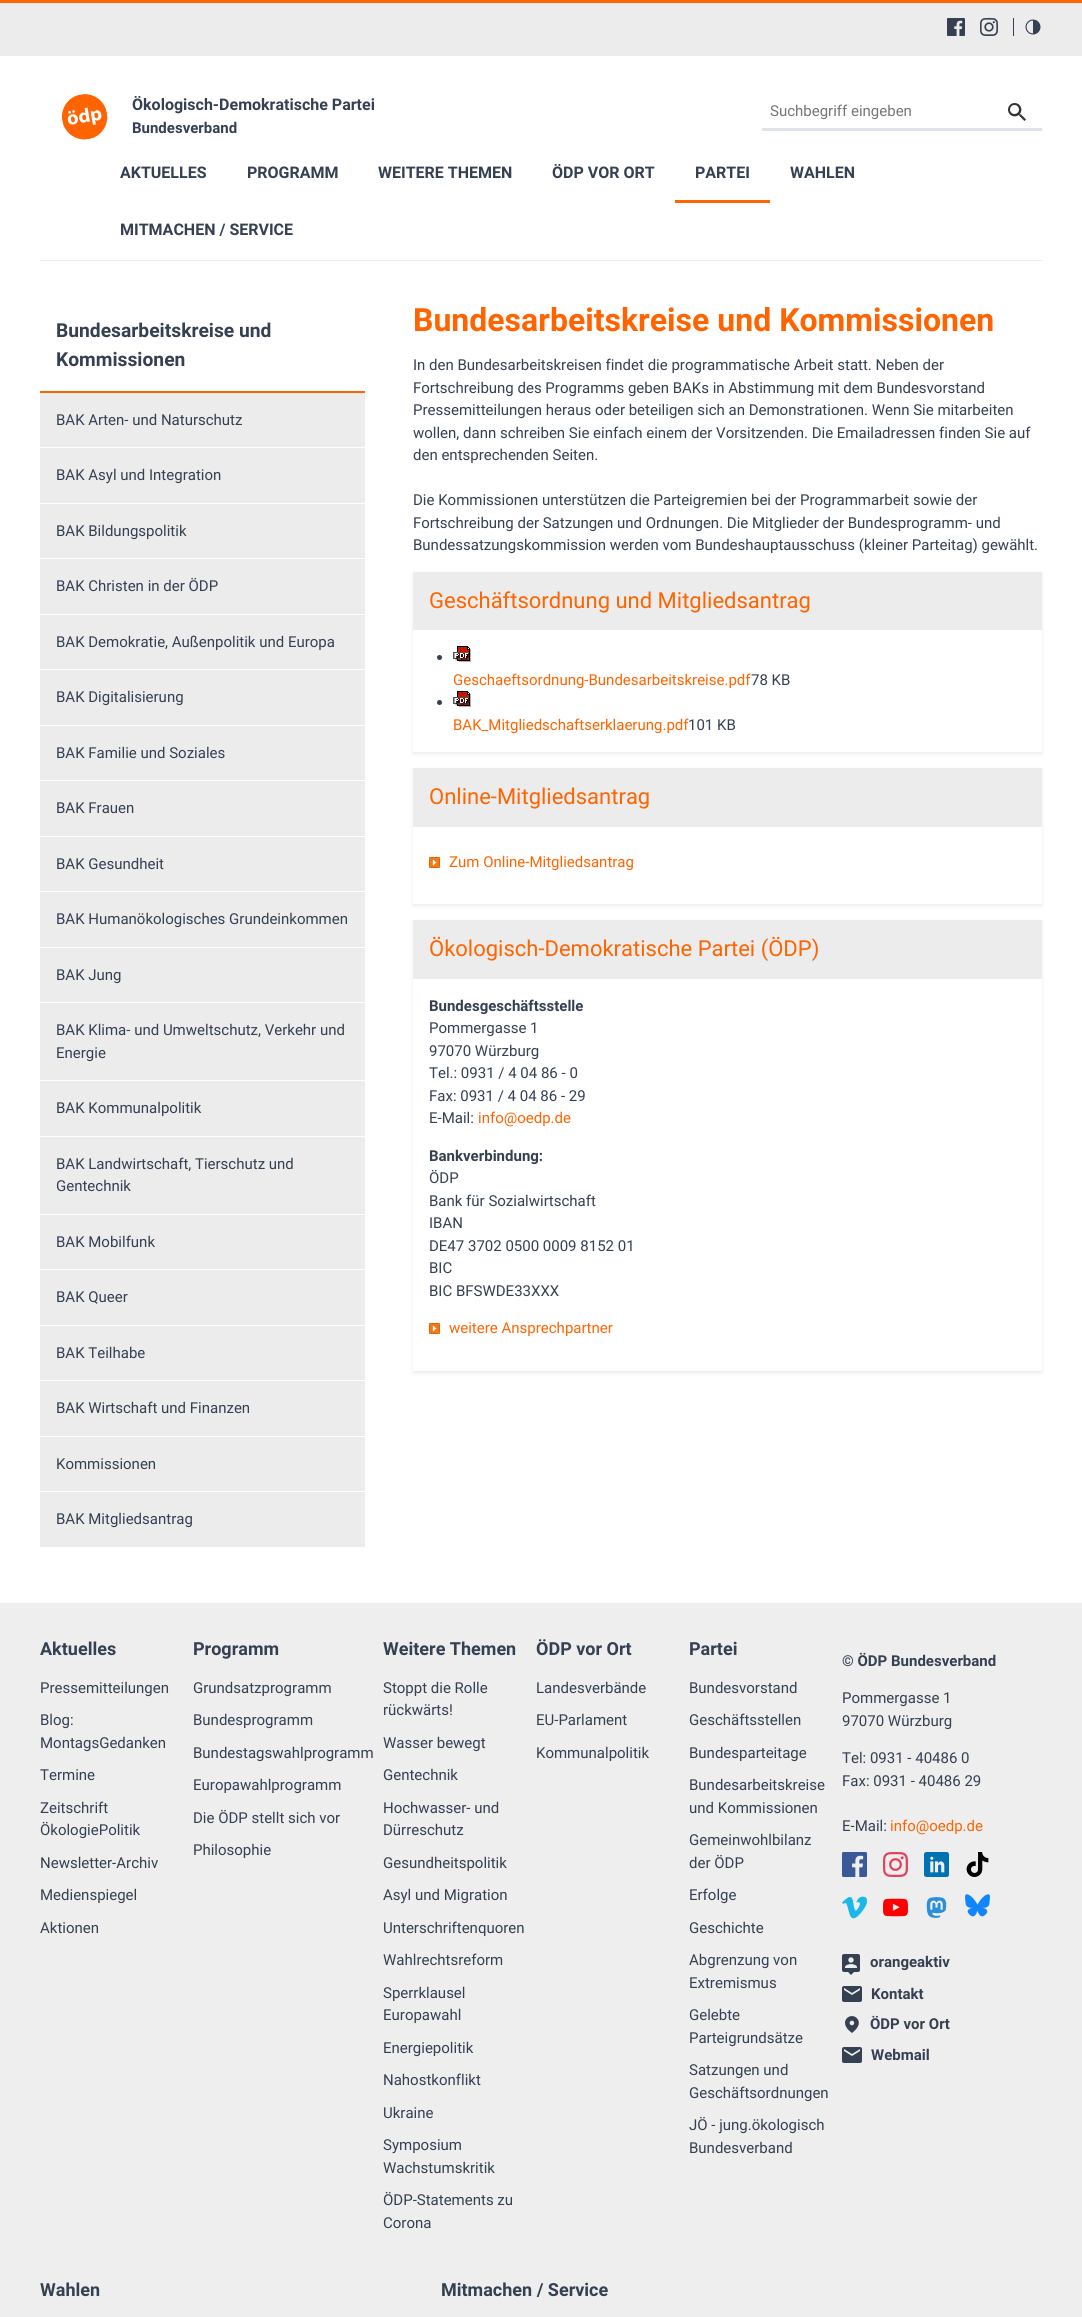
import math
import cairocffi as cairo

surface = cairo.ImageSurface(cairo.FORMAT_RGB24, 1082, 2317)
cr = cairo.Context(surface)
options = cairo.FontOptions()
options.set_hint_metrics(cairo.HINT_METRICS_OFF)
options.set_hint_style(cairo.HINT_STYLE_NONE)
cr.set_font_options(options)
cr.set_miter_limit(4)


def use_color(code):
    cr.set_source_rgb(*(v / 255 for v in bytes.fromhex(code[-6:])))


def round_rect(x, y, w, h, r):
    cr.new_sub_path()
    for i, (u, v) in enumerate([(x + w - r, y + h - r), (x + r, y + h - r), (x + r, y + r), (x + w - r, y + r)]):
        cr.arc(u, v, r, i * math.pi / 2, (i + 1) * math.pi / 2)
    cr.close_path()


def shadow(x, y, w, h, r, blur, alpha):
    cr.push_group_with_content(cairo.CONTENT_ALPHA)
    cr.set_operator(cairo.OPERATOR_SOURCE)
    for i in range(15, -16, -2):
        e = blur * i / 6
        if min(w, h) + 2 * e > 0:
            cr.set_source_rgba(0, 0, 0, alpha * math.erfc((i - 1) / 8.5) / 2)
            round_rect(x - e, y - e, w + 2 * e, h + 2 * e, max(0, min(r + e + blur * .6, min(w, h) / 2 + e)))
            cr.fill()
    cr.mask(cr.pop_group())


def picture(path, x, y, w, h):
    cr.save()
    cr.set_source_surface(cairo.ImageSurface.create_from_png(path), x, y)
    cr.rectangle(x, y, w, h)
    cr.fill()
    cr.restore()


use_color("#ffffff")
cr.paint()
use_color("#ececec")
cr.rectangle(0, 3, 1082, 53)
cr.fill()
use_color("#ff6400")
cr.rectangle(0, 0, 1082, 3)
cr.fill()
picture("img1.png", 947, 18, 18, 18)
picture("img2.png", 980, 18, 18, 18)
use_color("#354052")
cr.rectangle(1013, 18, 1, 18)
cr.fill()
picture("img3.png", 1025, 19, 16, 16)
use_color("#ececec")
cr.rectangle(40, 260, 1002, 1)
cr.fill()
picture("img4.png", 61, 94, 47, 46)
cr.select_font_face("Roboto", cairo.FONT_SLANT_NORMAL, cairo.FONT_WEIGHT_BOLD)
cr.set_font_size(16)
use_color("#354052")
cr.move_to(132, 110)
cr.show_text("Ökologisch-Demokratische Partei")
cr.set_font_size(15)
cr.move_to(132, 133)
cr.show_text("Bundesverband")
use_color("#dfe3e9")
cr.rectangle(762, 128, 280, 3)
cr.fill()
cr.select_font_face("Roboto")
use_color("#757575")
cr.move_to(770, 116)
cr.show_text("Suchbegriff eingeben")
picture("img5.png", 1008, 103, 18, 18)
cr.select_font_face("Roboto", cairo.FONT_SLANT_NORMAL, cairo.FONT_WEIGHT_BOLD)
cr.set_font_size(16)
use_color("#354052")
cr.move_to(120, 178)
cr.show_text("AKTUELLES")
cr.move_to(247, 178)
cr.show_text("PROGRAMM")
cr.move_to(378, 178)
cr.show_text("WEITERE THEMEN")
cr.move_to(552, 178)
cr.show_text("ÖDP VOR ORT")
use_color("#ff6400")
cr.rectangle(675, 200, 95, 3)
cr.fill()
use_color("#354052")
cr.move_to(695, 178)
cr.show_text("PARTEI")
cr.move_to(790, 178)
cr.show_text("WAHLEN")
cr.move_to(120, 235)
cr.show_text("MITMACHEN / SERVICE")
use_color("#ff6400")
cr.rectangle(40, 391, 325, 2)
cr.fill()
cr.set_font_size(19.25)
use_color("#354052")
cr.move_to(56, 337)
cr.show_text("Bundesarbeitskreise und")
cr.move_to(56, 366)
cr.show_text("Kommissionen")
use_color("#ececec")
cr.rectangle(40, 393, 325, 1154)
cr.fill()
use_color("#ffffff")
cr.rectangle(40, 447, 325, 1)
cr.fill()
cr.select_font_face("Roboto")
cr.set_font_size(15)
use_color("#354052")
cr.move_to(56, 425)
cr.show_text("BAK Arten- und Naturschutz")
use_color("#ffffff")
cr.rectangle(40, 503, 325, 1)
cr.fill()
use_color("#354052")
cr.move_to(56, 480)
cr.show_text("BAK Asyl und Integration")
use_color("#ffffff")
cr.rectangle(40, 558, 325, 1)
cr.fill()
use_color("#354052")
cr.move_to(56, 536)
cr.show_text("BAK Bildungspolitik")
use_color("#ffffff")
cr.rectangle(40, 614, 325, 1)
cr.fill()
use_color("#354052")
cr.move_to(56, 591)
cr.show_text("BAK Christen in der ÖDP")
use_color("#ffffff")
cr.rectangle(40, 669, 325, 1)
cr.fill()
use_color("#354052")
cr.move_to(56, 647)
cr.show_text("BAK Demokratie, Außenpolitik und Europa")
use_color("#ffffff")
cr.rectangle(40, 725, 325, 1)
cr.fill()
use_color("#354052")
cr.move_to(56, 702)
cr.show_text("BAK Digitalisierung")
use_color("#ffffff")
cr.rectangle(40, 780, 325, 1)
cr.fill()
use_color("#354052")
cr.move_to(56, 758)
cr.show_text("BAK Familie und Soziales")
use_color("#ffffff")
cr.rectangle(40, 836, 325, 1)
cr.fill()
use_color("#354052")
cr.move_to(56, 813)
cr.show_text("BAK Frauen")
use_color("#ffffff")
cr.rectangle(40, 891, 325, 1)
cr.fill()
use_color("#354052")
cr.move_to(56, 869)
cr.show_text("BAK Gesundheit")
use_color("#ffffff")
cr.rectangle(40, 947, 325, 1)
cr.fill()
use_color("#354052")
cr.move_to(56, 924)
cr.show_text("BAK Humanökologisches Grundeinkommen")
use_color("#ffffff")
cr.rectangle(40, 1002, 325, 1)
cr.fill()
use_color("#354052")
cr.move_to(56, 980)
cr.show_text("BAK Jung")
use_color("#ffffff")
cr.rectangle(40, 1080, 325, 1)
cr.fill()
use_color("#354052")
cr.move_to(56, 1035)
cr.show_text("BAK Klima- und Umweltschutz, Verkehr und")
cr.move_to(56, 1058)
cr.show_text("Energie")
use_color("#ffffff")
cr.rectangle(40, 1136, 325, 1)
cr.fill()
use_color("#354052")
cr.move_to(56, 1113)
cr.show_text("BAK Kommunalpolitik")
use_color("#ffffff")
cr.rectangle(40, 1214, 325, 1)
cr.fill()
use_color("#354052")
cr.move_to(56, 1169)
cr.show_text("BAK Landwirtschaft, Tierschutz und")
cr.move_to(56, 1191)
cr.show_text("Gentechnik")
use_color("#ffffff")
cr.rectangle(40, 1269, 325, 1)
cr.fill()
use_color("#354052")
cr.move_to(56, 1247)
cr.show_text("BAK Mobilfunk")
use_color("#ffffff")
cr.rectangle(40, 1325, 325, 1)
cr.fill()
use_color("#354052")
cr.move_to(56, 1302)
cr.show_text("BAK Queer")
use_color("#ffffff")
cr.rectangle(40, 1380, 325, 1)
cr.fill()
use_color("#354052")
cr.move_to(56, 1358)
cr.show_text("BAK Teilhabe")
use_color("#ffffff")
cr.rectangle(40, 1436, 325, 1)
cr.fill()
use_color("#354052")
cr.move_to(56, 1413)
cr.show_text("BAK Wirtschaft und Finanzen")
use_color("#ffffff")
cr.rectangle(40, 1491, 325, 1)
cr.fill()
use_color("#354052")
cr.move_to(56, 1469)
cr.show_text("Kommissionen")
cr.move_to(56, 1524)
cr.show_text("BAK Mitgliedsantrag")
cr.select_font_face("Roboto", cairo.FONT_SLANT_NORMAL, cairo.FONT_WEIGHT_BOLD)
cr.set_font_size(32)
use_color("#ff6400")
cr.move_to(413, 331)
cr.show_text("Bundesarbeitskreise und Kommissionen")
cr.select_font_face("Roboto")
cr.set_font_size(15)
use_color("#354052")
cr.move_to(413, 370)
cr.show_text("In den Bundesarbeitskreisen findet die programmatische Arbeit statt. Neben der")
cr.move_to(413, 393)
cr.show_text("Fortschreibung des Programms geben BAKs in Abstimmung mit dem Bundesvorstand")
cr.move_to(413, 415)
cr.show_text("Pressemitteilungen heraus oder beteiligen sich an Demonstrationen. Wenn Sie mitarbeiten")
cr.move_to(413, 438)
cr.show_text("wollen, dann schreiben Sie einfach einem der Vorsitzenden. Die Emailadressen finden Sie auf")
cr.move_to(413, 460)
cr.show_text("den entsprechenden Seiten.")
cr.move_to(413, 505)
cr.show_text("Die Kommissionen unterstützen die Parteigremien bei der Programmarbeit sowie der")
cr.move_to(413, 528)
cr.show_text("Fortschreibung der Satzungen und Ordnungen. Die Mitglieder der Bundesprogramm- und")
cr.move_to(413, 550)
cr.show_text("Bundessatzungskommission werden vom Bundeshauptausschuss (kleiner Parteitag) gewählt.")
cr.save()
cr.set_fill_rule(cairo.FILL_RULE_EVEN_ODD)
cr.new_path()
cr.move_to(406, 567)
cr.line_to(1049, 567)
cr.line_to(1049, 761)
cr.line_to(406, 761)
cr.close_path()
cr.move_to(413, 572)
cr.line_to(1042, 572)
cr.line_to(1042, 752)
cr.line_to(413, 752)
cr.close_path()
cr.clip()
use_color("#ececec")
shadow(413, 574, 629, 180, 0, 2, 1)
cr.restore()
use_color("#ececec")
cr.rectangle(413, 572, 629, 58)
cr.fill()
cr.set_font_size(22)
use_color("#ff6400")
cr.move_to(429, 608)
cr.show_text("Geschäftsordnung und Mitgliedsantrag")
use_color("#354052")
cr.new_path()
cr.arc(439.5, 657.5, 2.5, 0, 2 * math.pi)
cr.fill()
picture("img6.png", 453, 646, 18, 16)
cr.set_font_size(15)
use_color("#ff6400")
cr.move_to(453, 685)
cr.show_text("Geschaeftsordnung-Bundesarbeitskreise.pdf")
use_color("#354052")
cr.move_to(751, 685)
cr.show_text("78 KB")
cr.new_path()
cr.arc(439.5, 702.5, 2.5, 0, 2 * math.pi)
cr.fill()
picture("img6.png", 453, 691, 18, 16)
use_color("#ff6400")
cr.move_to(453, 730)
cr.show_text("BAK_Mitgliedschaftserklaerung.pdf")
use_color("#354052")
cr.move_to(688, 730)
cr.show_text("101 KB")
cr.save()
cr.set_fill_rule(cairo.FILL_RULE_EVEN_ODD)
cr.new_path()
cr.move_to(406, 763)
cr.line_to(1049, 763)
cr.line_to(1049, 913)
cr.line_to(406, 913)
cr.close_path()
cr.move_to(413, 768)
cr.line_to(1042, 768)
cr.line_to(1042, 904)
cr.line_to(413, 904)
cr.close_path()
cr.clip()
use_color("#ececec")
shadow(413, 770, 629, 136, 0, 2, 1)
cr.restore()
use_color("#ececec")
cr.rectangle(413, 768, 629, 59)
cr.fill()
cr.set_font_size(22)
use_color("#ff6400")
cr.move_to(429, 804)
cr.show_text("Online-Mitgliedsantrag")
picture("img7.png", 429, 857, 11, 11)
cr.set_font_size(15)
cr.move_to(449, 867)
cr.show_text("Zum Online-Mitgliedsantrag")
cr.save()
cr.set_fill_rule(cairo.FILL_RULE_EVEN_ODD)
cr.new_path()
cr.move_to(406, 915)
cr.line_to(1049, 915)
cr.line_to(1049, 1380)
cr.line_to(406, 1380)
cr.close_path()
cr.move_to(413, 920)
cr.line_to(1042, 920)
cr.line_to(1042, 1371)
cr.line_to(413, 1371)
cr.close_path()
cr.clip()
use_color("#ececec")
shadow(413, 922, 629, 451, 0, 2, 1)
cr.restore()
use_color("#ececec")
cr.rectangle(413, 920, 629, 59)
cr.fill()
cr.set_font_size(22)
use_color("#ff6400")
cr.move_to(429, 956)
cr.show_text("Ökologisch-Demokratische Partei (ÖDP)")
cr.select_font_face("Roboto", cairo.FONT_SLANT_NORMAL, cairo.FONT_WEIGHT_BOLD)
cr.set_font_size(15)
use_color("#354052")
cr.move_to(429, 1011)
cr.show_text("Bundesgeschäftsstelle")
cr.select_font_face("Roboto")
cr.move_to(429, 1033)
cr.show_text("Pommergasse 1")
cr.move_to(429, 1056)
cr.show_text("97070 Würzburg")
cr.move_to(429, 1078)
cr.show_text("Tel.: 0931 / 4 04 86 - 0")
cr.move_to(429, 1101)
cr.show_text("Fax: 0931 / 4 04 86 - 29")
cr.move_to(429, 1123)
cr.show_text("E-Mail:")
use_color("#ff6400")
cr.move_to(478, 1123)
cr.show_text("info@oedp.de")
cr.select_font_face("Roboto", cairo.FONT_SLANT_NORMAL, cairo.FONT_WEIGHT_BOLD)
use_color("#354052")
cr.move_to(429, 1161)
cr.show_text("Bankverbindung:")
cr.select_font_face("Roboto")
cr.move_to(429, 1183)
cr.show_text("ÖDP")
cr.move_to(429, 1206)
cr.show_text("Bank für Sozialwirtschaft")
cr.move_to(429, 1228)
cr.show_text("IBAN")
cr.move_to(429, 1251)
cr.show_text("DE47 3702 0500 0009 8152 01")
cr.move_to(429, 1273)
cr.show_text("BIC")
cr.move_to(429, 1296)
cr.show_text("BIC BFSWDE33XXX")
picture("img7.png", 429, 1323, 11, 11)
use_color("#ff6400")
cr.move_to(449, 1333)
cr.show_text("weitere Ansprechpartner")
use_color("#eeeeee")
cr.rectangle(0, 1603, 1082, 714)
cr.fill()
cr.select_font_face("Roboto", cairo.FONT_SLANT_NORMAL, cairo.FONT_WEIGHT_BOLD)
cr.set_font_size(18)
use_color("#354052")
cr.move_to(40, 1655)
cr.show_text("Aktuelles")
cr.select_font_face("Roboto")
cr.set_font_size(15)
cr.move_to(40, 1693)
cr.show_text("Pressemitteilungen")
cr.move_to(40, 1725)
cr.show_text("Blog:")
cr.move_to(40, 1748)
cr.show_text("MontagsGedanken")
cr.move_to(40, 1780)
cr.show_text("Termine")
cr.move_to(40, 1813)
cr.show_text("Zeitschrift")
cr.move_to(40, 1835)
cr.show_text("ÖkologiePolitik")
cr.move_to(40, 1868)
cr.show_text("Newsletter-Archiv")
cr.move_to(40, 1900)
cr.show_text("Medienspiegel")
cr.move_to(40, 1933)
cr.show_text("Aktionen")
cr.select_font_face("Roboto", cairo.FONT_SLANT_NORMAL, cairo.FONT_WEIGHT_BOLD)
cr.set_font_size(18)
cr.move_to(193, 1655)
cr.show_text("Programm")
cr.select_font_face("Roboto")
cr.set_font_size(15)
cr.move_to(193, 1693)
cr.show_text("Grundsatzprogramm")
cr.move_to(193, 1725)
cr.show_text("Bundesprogramm")
cr.move_to(193, 1758)
cr.show_text("Bundestagswahlprogramm")
cr.move_to(193, 1790)
cr.show_text("Europawahlprogramm")
cr.move_to(193, 1823)
cr.show_text("Die ÖDP stellt sich vor")
cr.move_to(193, 1855)
cr.show_text("Philosophie")
cr.select_font_face("Roboto", cairo.FONT_SLANT_NORMAL, cairo.FONT_WEIGHT_BOLD)
cr.set_font_size(18)
cr.move_to(383, 1655)
cr.show_text("Weitere Themen")
cr.select_font_face("Roboto")
cr.set_font_size(15)
cr.move_to(383, 1693)
cr.show_text("Stoppt die Rolle")
cr.move_to(383, 1715)
cr.show_text("rückwärts!")
cr.move_to(383, 1748)
cr.show_text("Wasser bewegt")
cr.move_to(383, 1780)
cr.show_text("Gentechnik")
cr.move_to(383, 1813)
cr.show_text("Hochwasser- und")
cr.move_to(383, 1835)
cr.show_text("Dürreschutz")
cr.move_to(383, 1868)
cr.show_text("Gesundheitspolitik")
cr.move_to(383, 1900)
cr.show_text("Asyl und Migration")
cr.move_to(383, 1933)
cr.show_text("Unterschriftenquoren")
cr.move_to(383, 1965)
cr.show_text("Wahlrechtsreform")
cr.move_to(383, 1998)
cr.show_text("Sperrklausel")
cr.move_to(383, 2020)
cr.show_text("Europawahl")
cr.move_to(383, 2053)
cr.show_text("Energiepolitik")
cr.move_to(383, 2085)
cr.show_text("Nahostkonflikt")
cr.move_to(383, 2118)
cr.show_text("Ukraine")
cr.move_to(383, 2150)
cr.show_text("Symposium")
cr.move_to(383, 2173)
cr.show_text("Wachstumskritik")
cr.move_to(383, 2205)
cr.show_text("ÖDP-Statements zu")
cr.move_to(383, 2228)
cr.show_text("Corona")
cr.select_font_face("Roboto", cairo.FONT_SLANT_NORMAL, cairo.FONT_WEIGHT_BOLD)
cr.set_font_size(18)
cr.move_to(536, 1655)
cr.show_text("ÖDP vor Ort")
cr.select_font_face("Roboto")
cr.set_font_size(15)
cr.move_to(536, 1693)
cr.show_text("Landesverbände")
cr.move_to(536, 1725)
cr.show_text("EU-Parlament")
cr.move_to(536, 1758)
cr.show_text("Kommunalpolitik")
cr.select_font_face("Roboto", cairo.FONT_SLANT_NORMAL, cairo.FONT_WEIGHT_BOLD)
cr.set_font_size(18)
cr.move_to(689, 1655)
cr.show_text("Partei")
cr.select_font_face("Roboto")
cr.set_font_size(15)
cr.move_to(689, 1693)
cr.show_text("Bundesvorstand")
cr.move_to(689, 1725)
cr.show_text("Geschäftsstellen")
cr.move_to(689, 1758)
cr.show_text("Bundesparteitage")
cr.move_to(689, 1790)
cr.show_text("Bundesarbeitskreise")
cr.move_to(689, 1813)
cr.show_text("und Kommissionen")
cr.move_to(689, 1845)
cr.show_text("Gemeinwohlbilanz")
cr.move_to(689, 1868)
cr.show_text("der ÖDP")
cr.move_to(689, 1900)
cr.show_text("Erfolge")
cr.move_to(689, 1933)
cr.show_text("Geschichte")
cr.move_to(689, 1965)
cr.show_text("Abgrenzung von")
cr.move_to(689, 1988)
cr.show_text("Extremismus")
cr.move_to(689, 2020)
cr.show_text("Gelebte")
cr.move_to(689, 2043)
cr.show_text("Parteigrundsätze")
cr.move_to(689, 2075)
cr.show_text("Satzungen und")
cr.move_to(689, 2098)
cr.show_text("Geschäftsordnungen")
cr.move_to(689, 2130)
cr.show_text("JÖ - jung.ökologisch")
cr.move_to(689, 2153)
cr.show_text("Bundesverband")
cr.select_font_face("Roboto", cairo.FONT_SLANT_NORMAL, cairo.FONT_WEIGHT_BOLD)
cr.set_font_size(18)
cr.move_to(40, 2296)
cr.show_text("Wahlen")
cr.move_to(441, 2296)
cr.show_text("Mitmachen / Service")
cr.set_font_size(15)
cr.move_to(842, 1666)
cr.show_text("© ÖDP Bundesverband")
cr.select_font_face("Roboto")
cr.move_to(842, 1703)
cr.show_text("Pommergasse 1")
cr.move_to(842, 1726)
cr.show_text("97070 Würzburg")
cr.move_to(842, 1763)
cr.show_text("Tel: 0931 - 40486 0")
cr.move_to(842, 1786)
cr.show_text("Fax: 0931 - 40486 29")
cr.move_to(842, 1831)
cr.show_text("E-Mail:")
use_color("#ff6400")
cr.move_to(890, 1831)
cr.show_text("info@oedp.de")
picture("img8.png", 842, 1852, 25, 25)
picture("img9.png", 883, 1852, 25, 25)
picture("img10.png", 924, 1852, 25, 25)
picture("img11.png", 966, 1852, 23, 25)
picture("img12.png", 842, 1896, 25, 23)
picture("img13.png", 883, 1898, 25, 19)
picture("img14.png", 926, 1897, 21, 21)
picture("img15.png", 965, 1894, 25, 23)
picture("img16.png", 842, 1954, 18, 21)
cr.select_font_face("Roboto", cairo.FONT_SLANT_NORMAL, cairo.FONT_WEIGHT_BOLD)
use_color("#354052")
cr.move_to(870, 1967)
cr.show_text("orangeaktiv")
picture("img17.png", 842, 1986, 20, 16)
cr.move_to(871, 1999)
cr.show_text("Kontakt")
picture("img18.png", 845, 2016, 14, 17)
cr.move_to(870, 2029)
cr.show_text("ÖDP vor Ort")
picture("img17.png", 842, 2047, 20, 16)
cr.move_to(871, 2060)
cr.show_text("Webmail")
surface.write_to_png("result.png")
